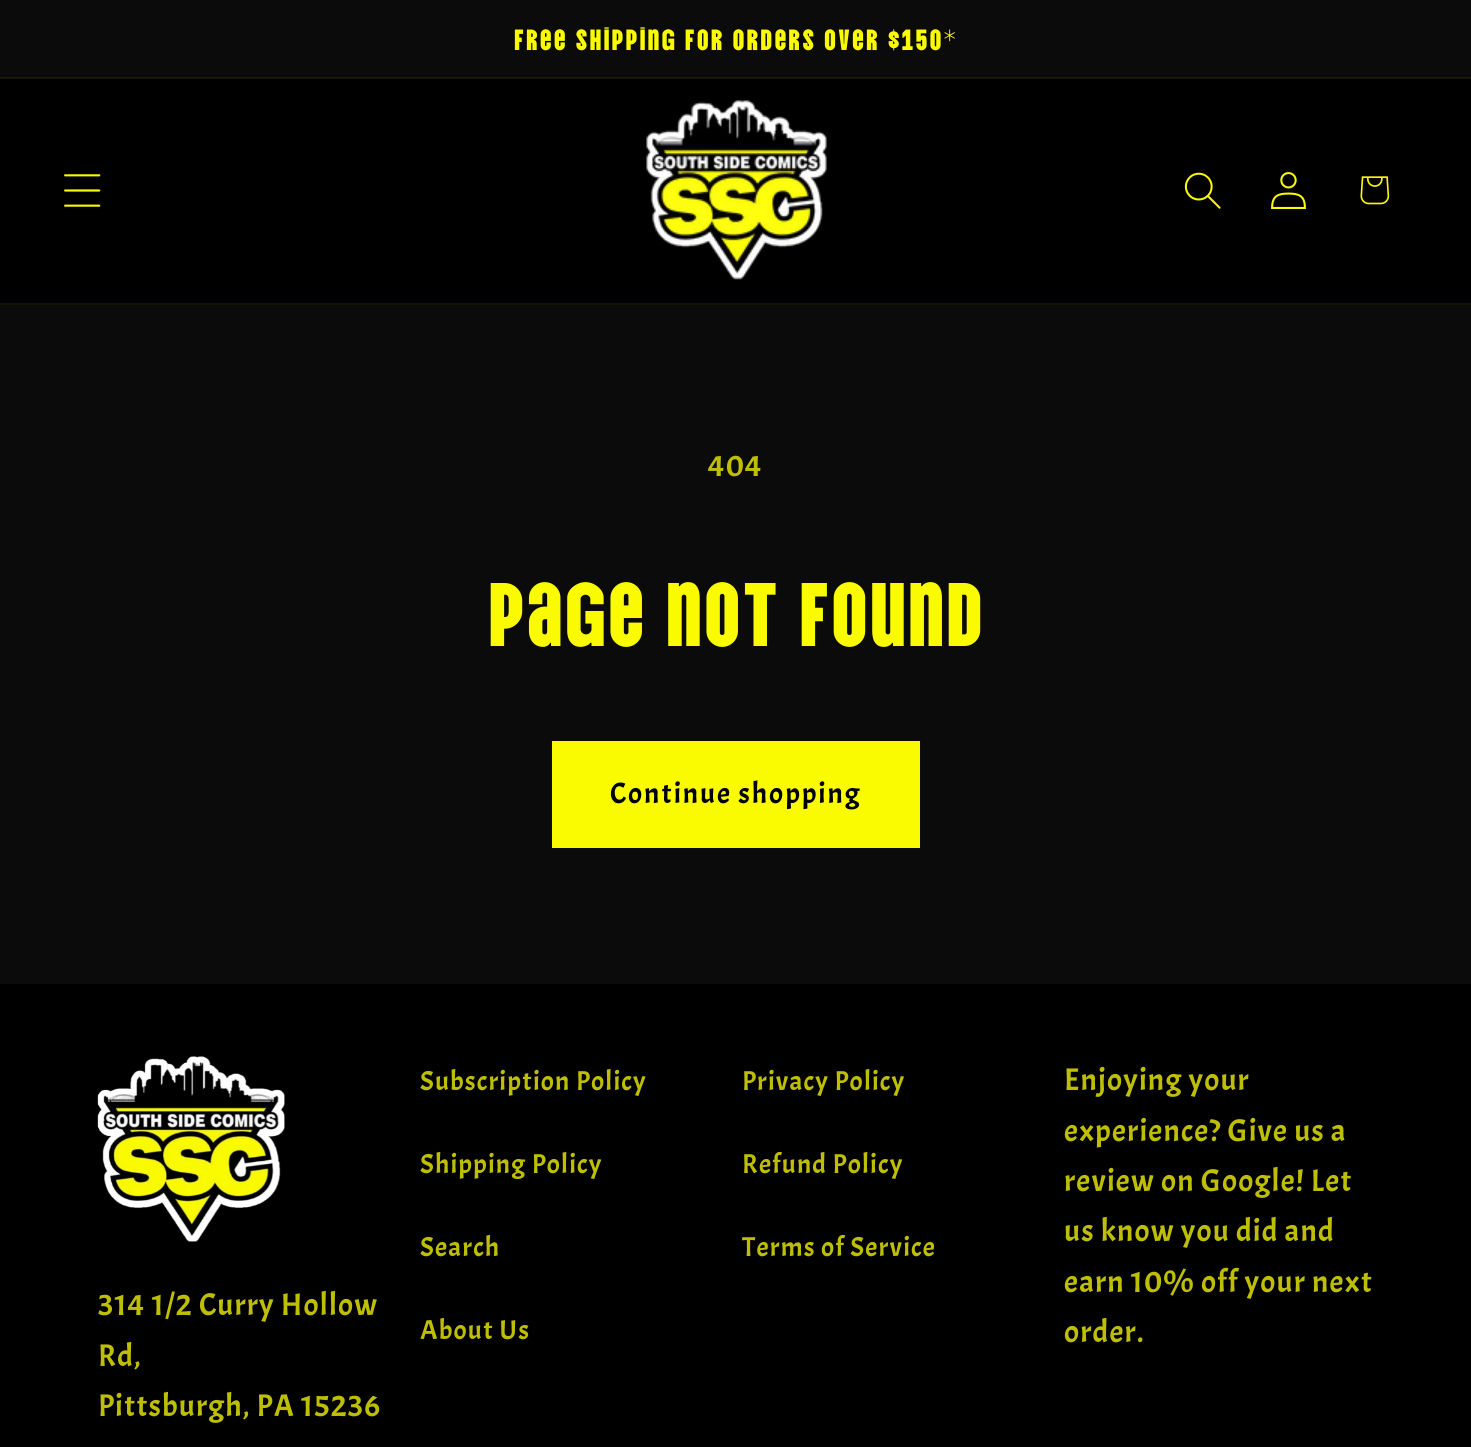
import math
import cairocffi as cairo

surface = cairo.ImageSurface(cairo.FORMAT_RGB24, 1471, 1447)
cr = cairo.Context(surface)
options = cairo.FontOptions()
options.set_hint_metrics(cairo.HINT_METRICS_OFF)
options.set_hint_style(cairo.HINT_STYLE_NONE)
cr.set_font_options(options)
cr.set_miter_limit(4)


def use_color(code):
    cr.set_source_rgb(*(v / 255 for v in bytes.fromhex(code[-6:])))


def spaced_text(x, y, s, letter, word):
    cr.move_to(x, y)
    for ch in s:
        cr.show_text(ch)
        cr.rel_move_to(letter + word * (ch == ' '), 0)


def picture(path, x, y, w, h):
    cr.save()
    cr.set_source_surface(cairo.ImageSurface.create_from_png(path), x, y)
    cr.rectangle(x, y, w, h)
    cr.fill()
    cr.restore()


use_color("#0b0b0b")
cr.paint()
use_color("#1e1e0a")
cr.rectangle(0, 77, 1471, 1)
cr.fill()
cr.select_font_face("Vina Sans")
cr.set_font_size(29.25)
use_color("#fafa00")
spaced_text(514, 50, "Free Shipping for Orders over $150*", 1.95, 0)
use_color("#000000")
cr.rectangle(0, 79, 1471, 224)
cr.fill()
use_color("#141400")
cr.rectangle(0, 78, 1471, 1)
cr.fill()
cr.rectangle(0, 303, 1471, 2)
cr.fill()
picture("img1.png", 64, 174, 37, 33)
picture("img2.png", 646, 100, 181, 180)
picture("img3.png", 1184, 172, 37, 37)
picture("img4.png", 1271, 172, 35, 37)
picture("img5.png", 1360, 176, 30, 29)
cr.select_font_face("Acme")
cr.set_font_size(31.25)
use_color("#bebe03")
spaced_text(708, 476, "404", 1.2, 0)
cr.select_font_face("Vina Sans")
cr.set_font_size(90)
use_color("#fafa00")
spaced_text(488, 646, "Page not found", 1.4, 0)
cr.rectangle(552, 741, 368, 107)
cr.fill()
cr.select_font_face("Acme")
cr.set_font_size(29.25)
use_color("#000000")
spaced_text(610, 803, "Continue shopping", 1.95, 0)
cr.rectangle(0, 984, 1471, 463)
cr.fill()
cr.set_font_size(27.25)
use_color("#bebe03")
spaced_text(420, 1090, "Subscription Policy", 1.2, 0)
spaced_text(420, 1173, "Shipping Policy", 1.2, 0)
spaced_text(420, 1256, "Search", 1.2, 0)
spaced_text(420, 1339, "About Us", 1.2, 0)
spaced_text(742, 1090, "Privacy Policy", 1.2, 0)
spaced_text(742, 1173, "Refund Policy", 1.2, 0)
spaced_text(742, 1256, "Terms of Service", 1.2, 0)
cr.set_font_size(31.25)
spaced_text(1064, 1090, "Enjoying your", 1.2, 0)
spaced_text(1064, 1141, "experience? Give us a", 1.2, 0)
spaced_text(1064, 1191, "review on Google! Let", 1.2, 0)
spaced_text(1064, 1241, "us know you did and", 1.2, 0)
spaced_text(1064, 1292, "earn 10% off your next", 1.2, 0)
spaced_text(1064, 1342, "order.", 1.2, 0)
picture("img6.png", 97, 1056, 188, 186)
spaced_text(98, 1315, "314 1/2 Curry Hollow", 1.2, 0)
spaced_text(98, 1366, "Rd,", 1.2, 0)
spaced_text(98, 1416, "Pittsburgh, PA 15236", 1.2, 0)
surface.write_to_png("result.png")
